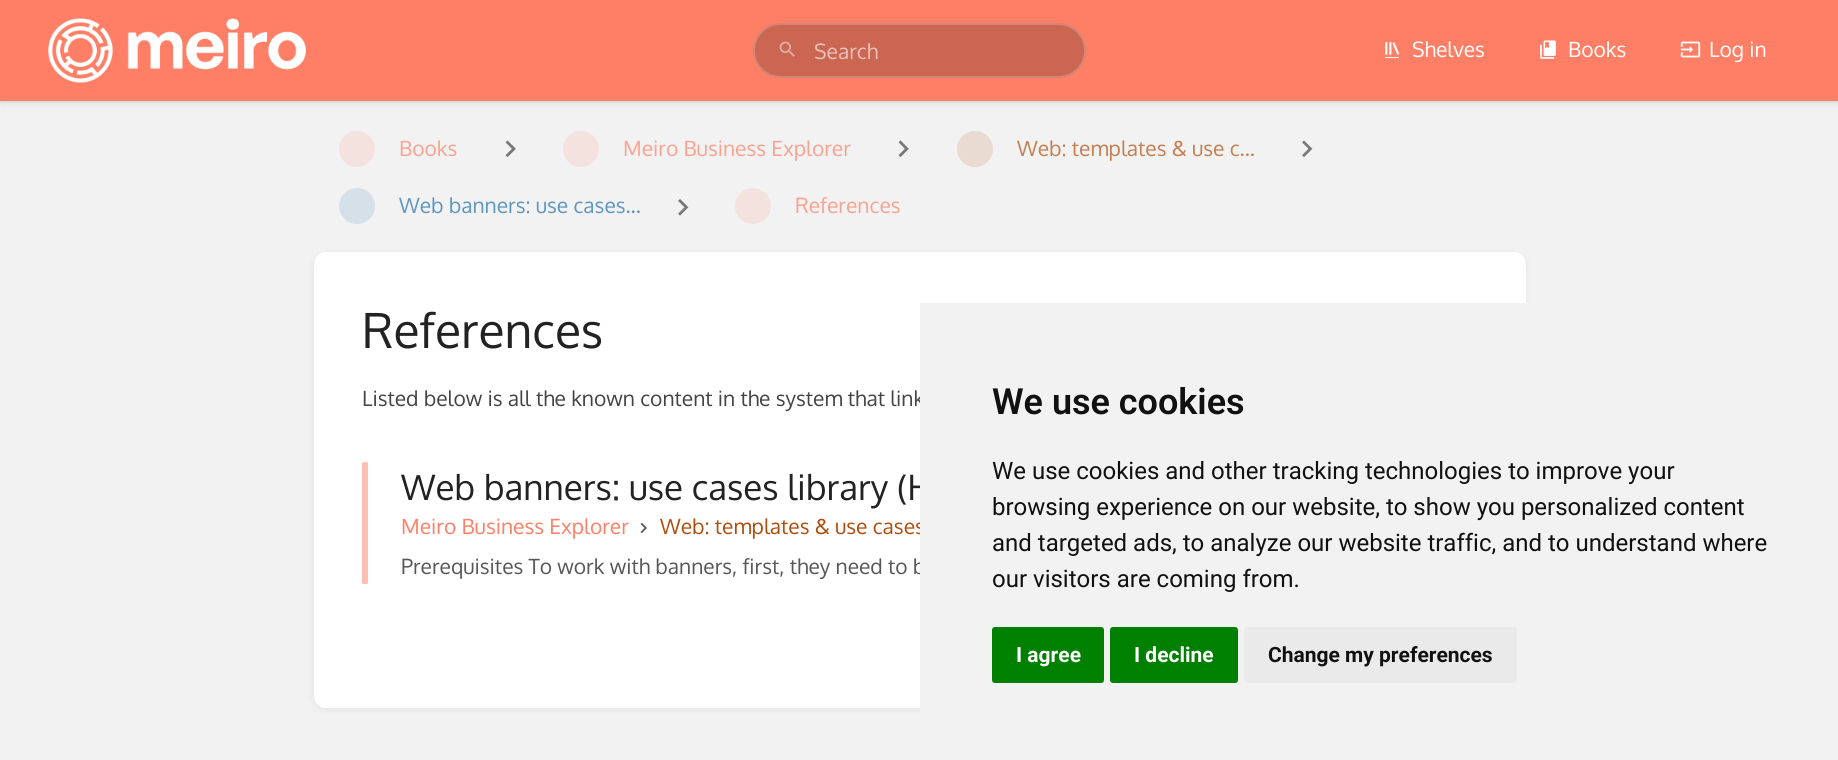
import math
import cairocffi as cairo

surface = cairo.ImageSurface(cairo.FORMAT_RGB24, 1838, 760)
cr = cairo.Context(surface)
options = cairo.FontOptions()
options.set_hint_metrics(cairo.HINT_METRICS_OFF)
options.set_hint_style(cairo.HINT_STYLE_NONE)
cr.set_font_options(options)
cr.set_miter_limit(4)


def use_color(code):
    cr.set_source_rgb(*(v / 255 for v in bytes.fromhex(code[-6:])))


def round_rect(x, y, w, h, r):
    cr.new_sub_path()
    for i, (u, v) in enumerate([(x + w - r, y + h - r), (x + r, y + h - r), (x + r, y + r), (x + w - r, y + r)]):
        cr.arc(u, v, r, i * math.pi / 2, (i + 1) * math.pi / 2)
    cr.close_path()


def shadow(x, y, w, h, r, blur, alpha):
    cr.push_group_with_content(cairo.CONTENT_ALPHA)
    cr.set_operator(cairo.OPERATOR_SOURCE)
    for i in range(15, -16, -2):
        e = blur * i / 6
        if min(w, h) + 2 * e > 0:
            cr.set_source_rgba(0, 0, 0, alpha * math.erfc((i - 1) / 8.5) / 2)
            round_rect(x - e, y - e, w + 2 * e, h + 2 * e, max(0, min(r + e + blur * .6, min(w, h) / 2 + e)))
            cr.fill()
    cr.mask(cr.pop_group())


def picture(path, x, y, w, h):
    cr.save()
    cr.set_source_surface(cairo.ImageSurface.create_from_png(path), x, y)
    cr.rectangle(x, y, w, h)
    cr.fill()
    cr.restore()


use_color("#f2f2f2")
cr.paint()
use_color("#000000")
shadow(2, 3, 1836, 99, 0, 4.5, 0.1)
use_color("#fe7f66")
cr.rectangle(0, 0, 1838, 101)
cr.fill()
use_color("#dddddd")
cr.rectangle(0, 101, 1838, 2)
cr.fill()
picture("img1.png", 48, 18, 258, 65)
use_color("#cb6652")
round_rect(753, 23, 333, 55, 27.5)
cr.fill()
round_rect(754, 24, 331, 53, 26.5)
cr.set_source_rgba(1, 1, 1, 0.2)
cr.stroke()
picture("img2.png", 779, 41, 16, 16)
cr.select_font_face("Oxygen")
cr.set_font_size(21)
use_color("#eac2ba")
cr.move_to(814, 59)
cr.show_text("Search")
picture("img3.png", 1385, 42, 15, 16)
use_color("#ffffff")
cr.move_to(1412, 57)
cr.show_text("Shelves")
picture("img4.png", 1540, 40, 16, 19)
cr.move_to(1568, 57)
cr.show_text("Books")
picture("img5.png", 1680, 41, 21, 17)
cr.move_to(1709, 57)
cr.show_text("Log in")
use_color("#f4e2de")
cr.new_path()
cr.arc(357, 149, 18, 0, 2 * math.pi)
cr.fill()
use_color("#faa290")
cr.move_to(399, 156)
cr.show_text("Books")
picture("img6.png", 505, 140, 11, 18)
use_color("#f4e2de")
cr.arc(581, 149, 18, 0, 2 * math.pi)
cr.fill()
use_color("#faa290")
cr.move_to(623, 156)
cr.show_text("Meiro Business Explorer")
picture("img6.png", 898, 140, 11, 18)
use_color("#e9dbd2")
cr.arc(975, 149, 18, 0, 2 * math.pi)
cr.fill()
use_color("#c37f52")
cr.move_to(1017, 156)
cr.show_text("Web: templates & use c...")
picture("img7.png", 1302, 140, 11, 17)
use_color("#d5e0e8")
cr.arc(357, 206, 18, 0, 2 * math.pi)
cr.fill()
use_color("#5f96be")
cr.move_to(399, 213)
cr.show_text("Web banners: use cases...")
picture("img8.png", 678, 199, 11, 17)
use_color("#f4e2de")
cr.arc(753, 206, 18, 0, 2 * math.pi)
cr.fill()
use_color("#faa290")
cr.move_to(795, 213)
cr.show_text("References")
use_color("#000000")
shadow(315, 255, 1209, 453, 11, 4.5, 0.1)
use_color("#ffffff")
round_rect(314, 252, 1212, 456, 12)
cr.fill()
cr.set_font_size(48)
use_color("#222222")
cr.move_to(362, 348)
cr.show_text("References")
cr.set_font_size(21)
use_color("#444444")
cr.move_to(362, 406)
cr.show_text("Listed below is all the known content in the system that link")
use_color("#ffbfb3")
round_rect(362, 462, 6, 122, 1.5)
cr.fill()
cr.set_font_size(35)
use_color("#222222")
cr.move_to(401, 500)
cr.show_text("Web banners: use cases library (H")
cr.set_font_size(21)
use_color("#fe7f66")
cr.move_to(401, 534)
cr.show_text("Meiro Business Explorer")
picture("img9.png", 640, 522, 7, 12)
use_color("#af4d0d")
cr.move_to(660, 534)
cr.show_text("Web: templates & use cases")
use_color("#575757")
cr.move_to(401, 574)
cr.show_text("Prerequisites To work with banners, first, they need to b")
use_color("#f2f2f2")
cr.rectangle(920, 303, 610, 411)
cr.fill()
cr.select_font_face("Roboto SemiBold")
cr.set_font_size(36)
use_color("#111111")
cr.move_to(992, 414)
cr.show_text("We use cookies")
cr.select_font_face("Roboto")
cr.set_font_size(24)
cr.move_to(992, 479)
cr.show_text("We use cookies and other tracking technologies to improve your")
cr.move_to(992, 515)
cr.show_text("browsing experience on our website, to show you personalized content")
cr.move_to(992, 551)
cr.show_text("and targeted ads, to analyze our website traffic, and to understand where")
cr.move_to(992, 587)
cr.show_text("our visitors are coming from.")
use_color("#008000")
round_rect(992, 627, 112, 56, 3)
cr.fill()
cr.select_font_face("Roboto", cairo.FONT_SLANT_NORMAL, cairo.FONT_WEIGHT_BOLD)
cr.set_font_size(21)
use_color("#ffffff")
cr.move_to(1016, 662)
cr.show_text("I agree")
use_color("#008000")
round_rect(1110, 627, 128, 56, 3)
cr.fill()
use_color("#ffffff")
cr.move_to(1134, 662)
cr.show_text("I decline")
use_color("#eaeaea")
round_rect(1244, 627, 273, 56, 3)
cr.fill()
use_color("#111111")
cr.move_to(1268, 662)
cr.show_text("Change my preferences")
surface.write_to_png("result.png")
